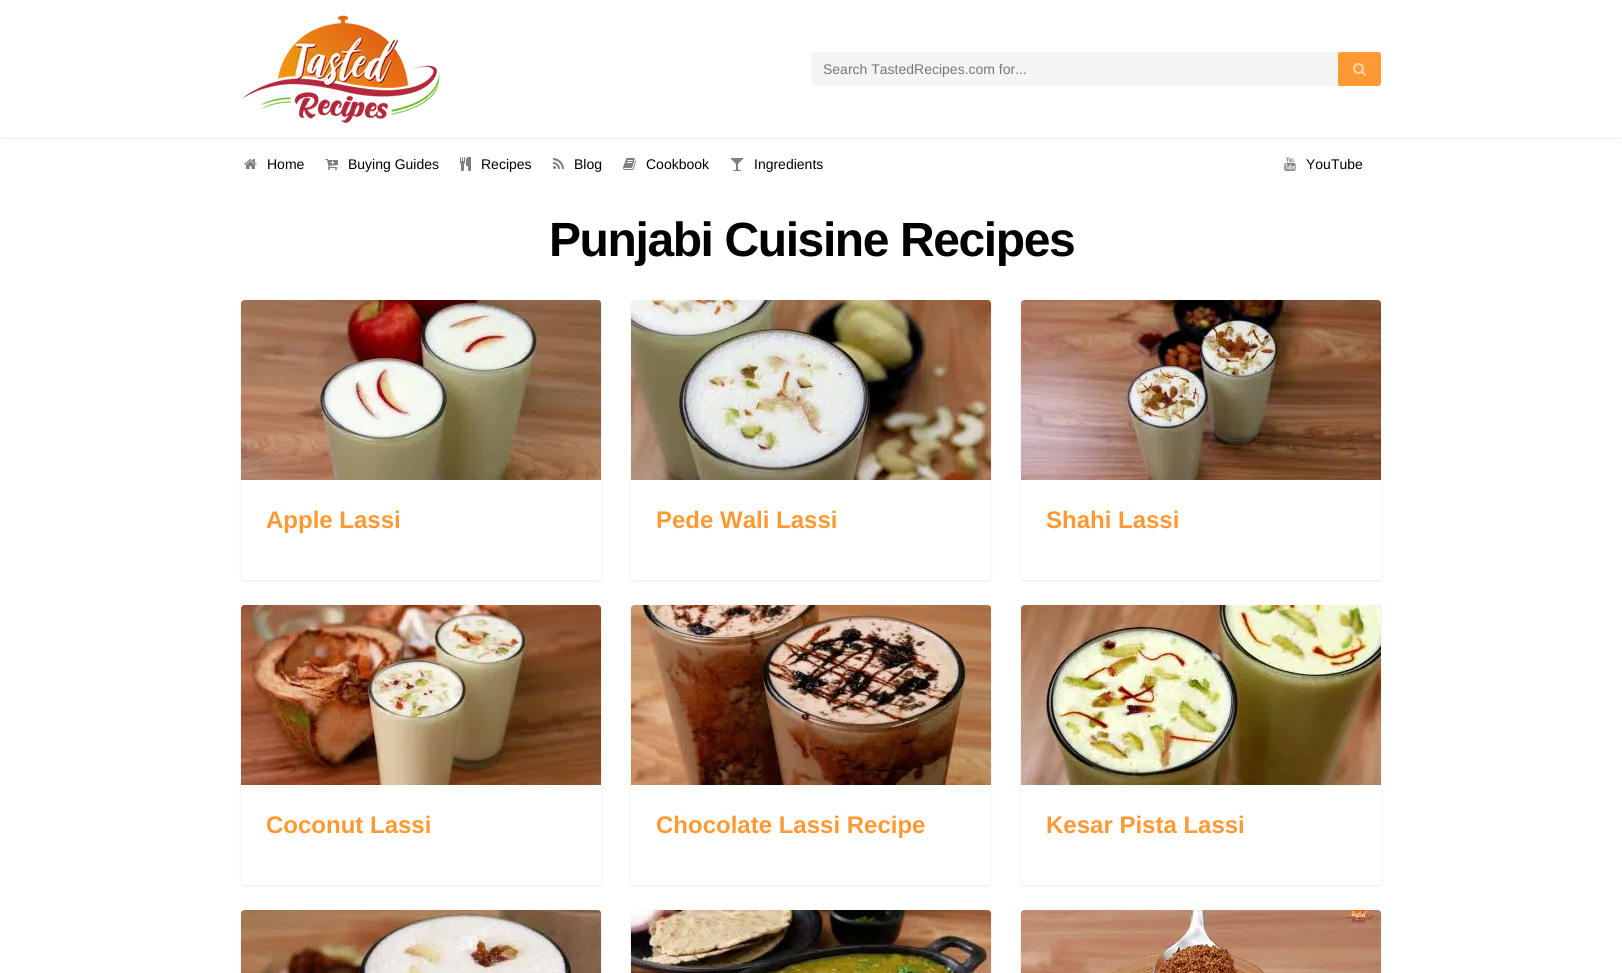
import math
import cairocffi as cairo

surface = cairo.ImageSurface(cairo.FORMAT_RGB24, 1622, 973)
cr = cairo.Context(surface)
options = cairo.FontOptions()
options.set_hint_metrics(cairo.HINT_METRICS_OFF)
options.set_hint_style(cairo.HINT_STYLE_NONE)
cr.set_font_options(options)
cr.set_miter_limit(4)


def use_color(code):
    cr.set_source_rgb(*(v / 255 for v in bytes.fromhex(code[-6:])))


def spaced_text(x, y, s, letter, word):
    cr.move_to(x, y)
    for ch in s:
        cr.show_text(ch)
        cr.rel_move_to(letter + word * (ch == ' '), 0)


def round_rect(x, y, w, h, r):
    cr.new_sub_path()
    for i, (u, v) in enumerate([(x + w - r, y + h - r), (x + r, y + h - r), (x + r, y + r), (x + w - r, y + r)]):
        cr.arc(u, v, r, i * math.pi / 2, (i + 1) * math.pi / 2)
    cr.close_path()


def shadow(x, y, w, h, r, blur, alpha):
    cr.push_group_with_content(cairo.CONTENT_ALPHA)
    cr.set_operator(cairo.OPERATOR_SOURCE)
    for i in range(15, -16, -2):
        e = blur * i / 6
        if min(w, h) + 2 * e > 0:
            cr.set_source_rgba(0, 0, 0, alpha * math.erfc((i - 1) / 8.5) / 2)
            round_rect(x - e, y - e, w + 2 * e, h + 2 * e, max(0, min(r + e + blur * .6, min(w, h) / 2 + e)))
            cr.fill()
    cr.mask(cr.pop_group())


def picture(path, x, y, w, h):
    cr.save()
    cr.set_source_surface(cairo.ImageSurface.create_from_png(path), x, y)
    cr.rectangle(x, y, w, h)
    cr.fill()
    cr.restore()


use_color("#ffffff")
cr.paint()
picture("img1.png", 242, 15, 198, 108)
use_color("#f5f5f5")
round_rect(811, 52, 570, 34, 3)
cr.fill()
cr.select_font_face("Liberation Sans")
cr.set_font_size(14)
use_color("#777777")
cr.move_to(823, 74)
cr.show_text("Search TastedRecipes.com for...")
use_color("#ff9933")
cr.new_path()
cr.move_to(1340, 52)
cr.line_to(1378, 52)
cr.curve_to(1379.5, 52, 1381, 53.5, 1381, 55)
cr.line_to(1381, 83)
cr.curve_to(1381, 84.5, 1379.5, 86, 1378, 86)
cr.line_to(1340, 86)
cr.curve_to(1339, 86, 1338, 85, 1338, 84)
cr.line_to(1338, 54)
cr.curve_to(1338, 53, 1339, 52, 1340, 52)
cr.close_path()
cr.fill()
picture("img2.png", 1353, 63, 13, 13)
use_color("#eeeeee")
cr.rectangle(2, 138, 1619, 1)
cr.fill()
picture("img3.png", 244, 159, 13, 10)
use_color("#000000")
cr.move_to(267, 169)
cr.show_text("Home")
picture("img4.png", 325, 159, 13, 11)
cr.move_to(348, 169)
cr.show_text("Buying Guides")
picture("img5.png", 460, 157, 11, 14)
cr.move_to(481, 169)
cr.show_text("Recipes")
picture("img6.png", 553, 158, 11, 11)
cr.move_to(574, 169)
cr.show_text("Blog")
picture("img7.png", 623, 158, 13, 12)
cr.move_to(646, 169)
cr.show_text("Cookbook")
picture("img8.png", 730, 158, 14, 13)
cr.move_to(754, 169)
cr.show_text("Ingredients")
picture("img9.png", 1284, 157, 12, 14)
cr.move_to(1306, 169)
cr.show_text("YouTube")
cr.select_font_face("Liberation Sans", cairo.FONT_SLANT_NORMAL, cairo.FONT_WEIGHT_BOLD)
cr.set_font_size(48)
spaced_text(549, 256, "Punjabi Cuisine Recipes", -1.4, 0)
use_color("#000000")
shadow(241, 301, 360, 280, 3, 1, 0.1)
use_color("#ffffff")
round_rect(241, 300, 360, 280, 3)
cr.fill()
picture("img10.png", 241, 300, 360, 180)
cr.set_font_size(24)
use_color("#ff9933")
cr.move_to(266, 528)
cr.show_text("Apple Lassi")
use_color("#000000")
shadow(631, 301, 360, 280, 3, 1, 0.1)
use_color("#ffffff")
round_rect(631, 300, 360, 280, 3)
cr.fill()
picture("img11.png", 631, 300, 360, 180)
use_color("#ff9933")
cr.move_to(656, 528)
cr.show_text("Pede Wali Lassi")
use_color("#000000")
shadow(1021, 301, 360, 280, 3, 1, 0.1)
use_color("#ffffff")
round_rect(1021, 300, 360, 280, 3)
cr.fill()
picture("img12.png", 1021, 300, 360, 180)
use_color("#ff9933")
cr.move_to(1046, 528)
cr.show_text("Shahi Lassi")
use_color("#000000")
shadow(241, 606, 360, 280, 3, 1, 0.1)
use_color("#ffffff")
round_rect(241, 605, 360, 280, 3)
cr.fill()
picture("img13.png", 241, 605, 360, 180)
use_color("#ff9933")
cr.move_to(266, 833)
cr.show_text("Coconut Lassi")
use_color("#000000")
shadow(631, 606, 360, 280, 3, 1, 0.1)
use_color("#ffffff")
round_rect(631, 605, 360, 280, 3)
cr.fill()
picture("img14.png", 631, 605, 360, 180)
use_color("#ff9933")
cr.move_to(656, 833)
cr.show_text("Chocolate Lassi Recipe")
use_color("#000000")
shadow(1021, 606, 360, 280, 3, 1, 0.1)
use_color("#ffffff")
round_rect(1021, 605, 360, 280, 3)
cr.fill()
picture("img15.png", 1021, 605, 360, 180)
use_color("#ff9933")
cr.move_to(1046, 833)
cr.show_text("Kesar Pista Lassi")
use_color("#000000")
shadow(241, 911, 360, 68, 3, 1, 0.1)
picture("img16.png", 241, 910, 360, 63)
shadow(631, 911, 360, 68, 3, 1, 0.1)
picture("img17.png", 631, 910, 360, 63)
shadow(1021, 911, 360, 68, 3, 1, 0.1)
picture("img18.png", 1021, 910, 360, 63)
surface.write_to_png("result.png")
